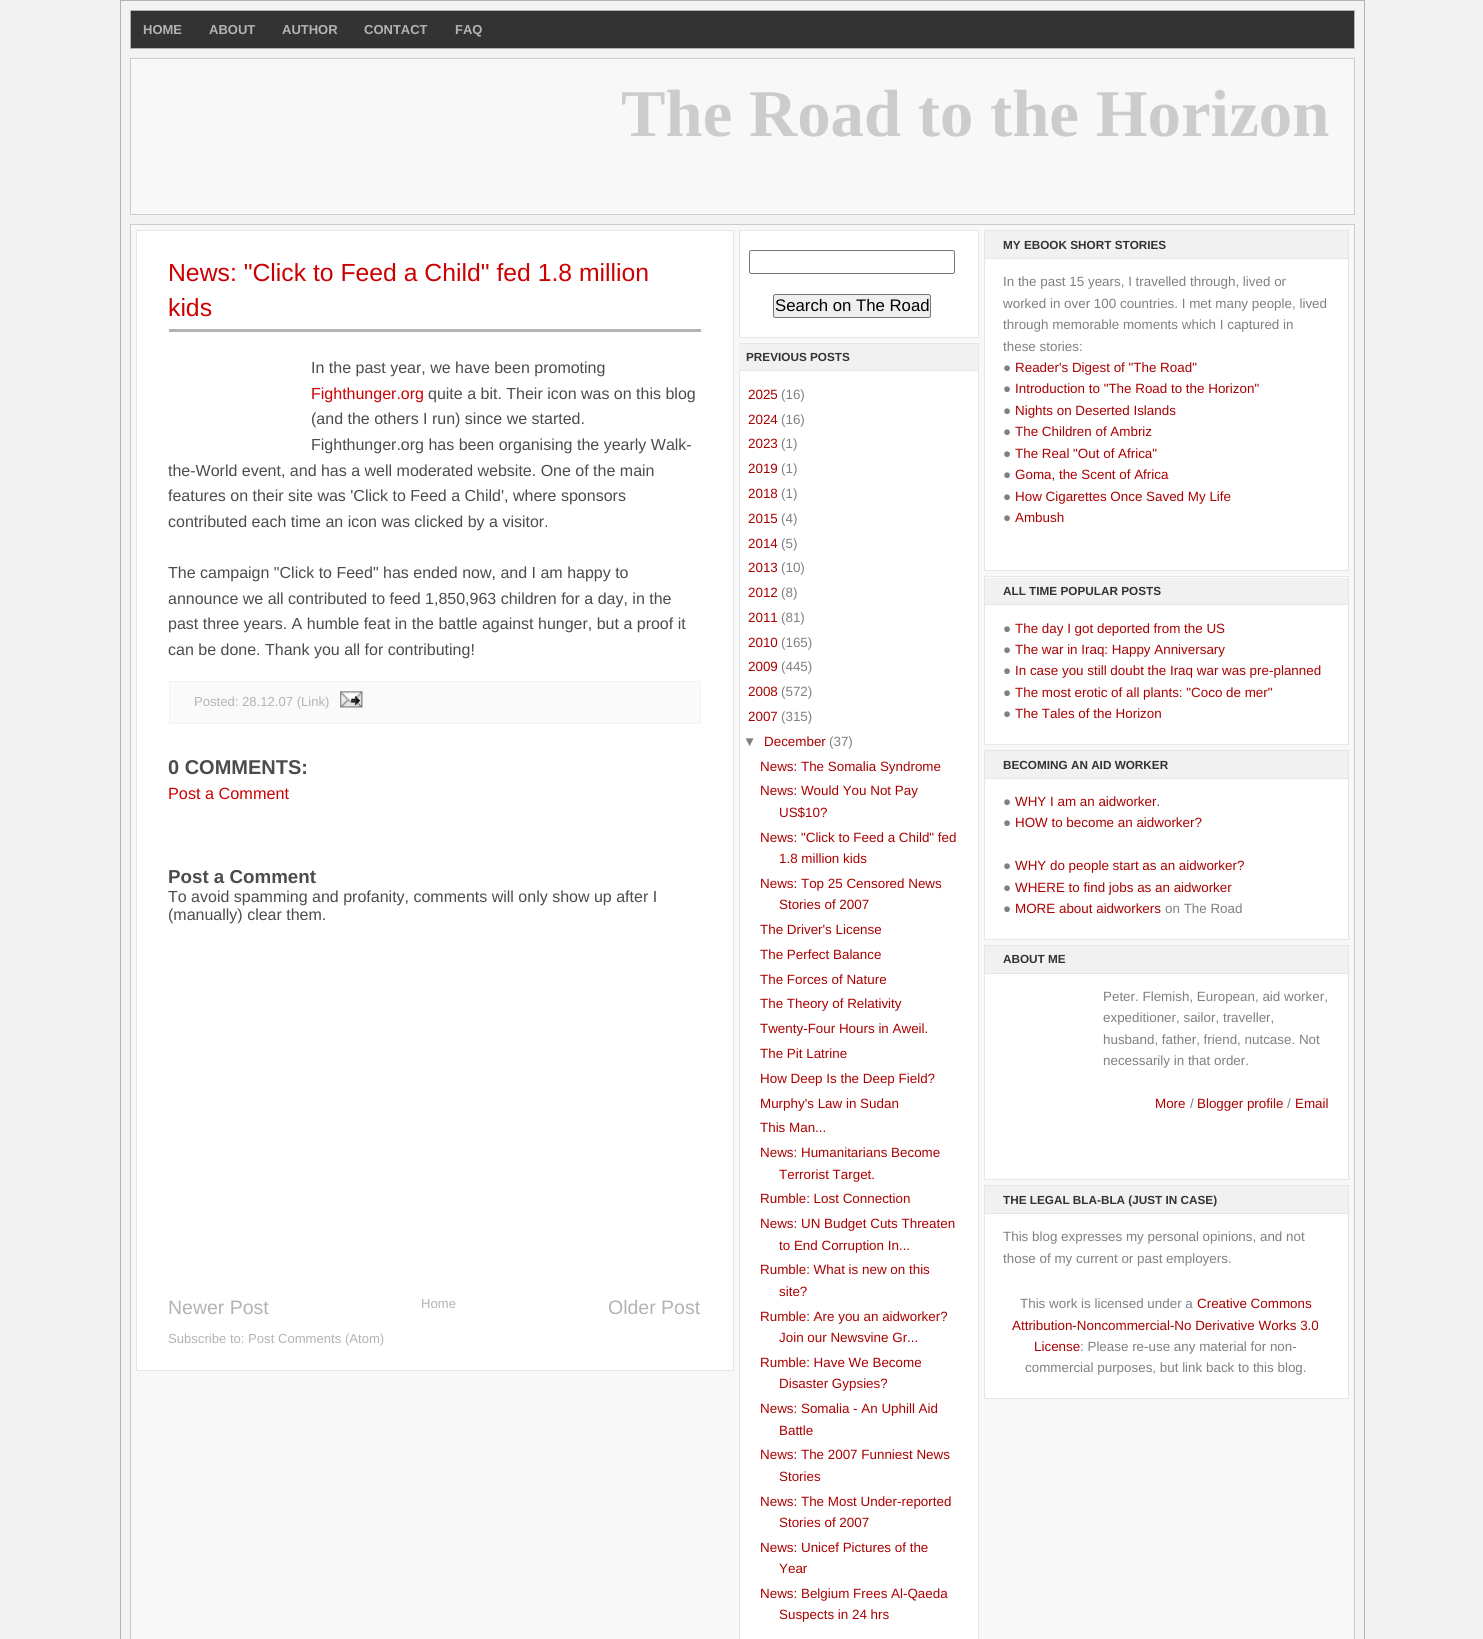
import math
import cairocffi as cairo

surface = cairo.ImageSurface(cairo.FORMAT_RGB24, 1483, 1639)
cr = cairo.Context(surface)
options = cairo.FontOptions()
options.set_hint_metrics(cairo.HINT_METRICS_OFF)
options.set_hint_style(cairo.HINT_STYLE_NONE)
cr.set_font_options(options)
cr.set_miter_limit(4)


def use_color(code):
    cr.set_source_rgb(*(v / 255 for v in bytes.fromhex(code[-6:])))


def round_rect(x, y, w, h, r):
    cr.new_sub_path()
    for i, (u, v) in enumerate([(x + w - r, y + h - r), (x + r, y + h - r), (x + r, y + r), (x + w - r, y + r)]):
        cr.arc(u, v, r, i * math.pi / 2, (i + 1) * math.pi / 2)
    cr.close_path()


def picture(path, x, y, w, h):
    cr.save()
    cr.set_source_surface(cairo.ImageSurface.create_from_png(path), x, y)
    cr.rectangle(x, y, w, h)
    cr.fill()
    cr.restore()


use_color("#f3f3f3")
cr.paint()
cr.rectangle(120.5, 0.5, 1244, 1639)
use_color("#b3b3b3")
cr.set_line_width(1)
cr.stroke()
use_color("#333333")
cr.rectangle(130.5, 10.5, 1224, 38)
cr.fill_preserve()
use_color("#b3b3b3")
cr.stroke()
cr.select_font_face("Liberation Sans", cairo.FONT_SLANT_NORMAL, cairo.FONT_WEIGHT_BOLD)
cr.set_font_size(13)
cr.move_to(143, 34)
cr.show_text("HOME")
cr.move_to(209, 34)
cr.show_text("ABOUT")
cr.move_to(282, 34)
cr.show_text("AUTHOR")
cr.move_to(364, 34)
cr.show_text("CONTACT")
cr.move_to(455, 34)
cr.show_text("FAQ")
use_color("#f8f8f8")
cr.rectangle(130.5, 58.5, 1224, 156)
cr.fill_preserve()
use_color("#cccccc")
cr.stroke()
cr.select_font_face("Liberation Serif", cairo.FONT_SLANT_NORMAL, cairo.FONT_WEIGHT_BOLD)
cr.set_font_size(66.75)
cr.move_to(621, 136)
cr.show_text("The Road to the Horizon")
use_color("#f8f8f8")
cr.rectangle(130.5, 224.5, 1224, 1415)
cr.fill_preserve()
use_color("#cccccc")
cr.stroke()
use_color("#ffffff")
cr.rectangle(136.5, 230.5, 597, 1140)
cr.fill_preserve()
use_color("#e6e6e6")
cr.stroke()
use_color("#b3b3b3")
cr.rectangle(169, 329, 532, 3)
cr.fill()
cr.select_font_face("Liberation Sans")
cr.set_font_size(24.75)
use_color("#cc0000")
cr.move_to(168, 281)
cr.show_text("News: \"Click to Feed a Child\" fed 1.8 million")
cr.move_to(168, 316)
cr.show_text("kids")
cr.set_font_size(16)
use_color("#4c4c4c")
cr.move_to(311, 373)
cr.show_text("In the past year, we have been promoting")
use_color("#cc0000")
cr.move_to(311, 399)
cr.show_text("Fighthunger.org")
use_color("#4c4c4c")
cr.move_to(428, 399)
cr.show_text("quite a bit. Their icon was on this blog")
cr.move_to(311, 424)
cr.show_text("(and the others I run) since we started.")
cr.move_to(311, 450)
cr.show_text("Fighthunger.org has been organising the yearly Walk-")
cr.move_to(168, 476)
cr.show_text("the-World event, and has a well moderated website. One of the main")
cr.move_to(168, 501)
cr.show_text("features on their site was 'Click to Feed a Child', where sponsors")
cr.move_to(168, 527)
cr.show_text("contributed each time an icon was clicked by a visitor.")
cr.move_to(168, 578)
cr.show_text("The campaign \"Click to Feed\" has ended now, and I am happy to")
cr.move_to(168, 604)
cr.show_text("announce we all contributed to feed 1,850,963 children for a day, in the")
cr.move_to(168, 629)
cr.show_text("past three years. A humble feat in the battle against hunger, but a proof it")
cr.move_to(168, 655)
cr.show_text("can be done. Thank you all for contributing!")
use_color("#fafafa")
cr.rectangle(169.5, 681.5, 531, 42)
cr.fill_preserve()
use_color("#f3f3f3")
cr.stroke()
cr.set_font_size(13.1)
use_color("#b3b3b3")
cr.move_to(194, 706)
cr.show_text("Posted: 28.12.07 (Link)")
picture("img1.png", 340, 691, 23, 17)
cr.select_font_face("Liberation Sans", cairo.FONT_SLANT_NORMAL, cairo.FONT_WEIGHT_BOLD)
cr.set_font_size(20)
use_color("#4c4c4c")
cr.move_to(168, 774)
cr.show_text("0 COMMENTS:")
cr.select_font_face("Liberation Sans")
cr.set_font_size(16.25)
use_color("#cc0000")
cr.move_to(168, 799)
cr.show_text("Post a Comment")
cr.select_font_face("Liberation Sans", cairo.FONT_SLANT_NORMAL, cairo.FONT_WEIGHT_BOLD)
cr.set_font_size(18.75)
use_color("#4c4c4c")
cr.move_to(168, 883)
cr.show_text("Post a Comment")
cr.select_font_face("Liberation Sans")
cr.set_font_size(16)
cr.move_to(168, 902)
cr.show_text("To avoid spamming and profanity, comments will only show up after I")
cr.move_to(168, 920)
cr.show_text("(manually) clear them.")
cr.set_font_size(19.5)
use_color("#b3b3b3")
cr.move_to(168, 1314)
cr.show_text("Newer Post")
cr.set_font_size(13.1)
cr.move_to(421, 1308)
cr.show_text("Home")
cr.set_font_size(19.5)
cr.move_to(608, 1314)
cr.show_text("Older Post")
cr.set_font_size(13.1)
cr.move_to(168, 1343)
cr.show_text("Subscribe to: Post Comments (Atom)")
use_color("#ffffff")
cr.rectangle(739.5, 230.5, 239, 107)
cr.fill_preserve()
use_color("#e6e6e6")
cr.stroke()
round_rect(749.5, 250.5, 205, 23, 2)
use_color("#767676")
cr.stroke()
use_color("#efefef")
round_rect(773.5, 294.5, 157, 23, 2)
cr.fill_preserve()
use_color("#767676")
cr.stroke()
cr.set_font_size(16.75)
use_color("#000000")
cr.move_to(775, 311)
cr.show_text("Search on The Road")
use_color("#ffffff")
cr.rectangle(740, 371, 238, 1268)
cr.fill()
cr.rectangle(739.5, 343.5, 239, 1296)
use_color("#e6e6e6")
cr.stroke()
use_color("#f1f1f1")
cr.rectangle(739, 344, 239, 26)
cr.fill()
use_color("#e6e6e6")
cr.rectangle(739, 370, 239, 1)
cr.fill()
cr.select_font_face("Liberation Sans", cairo.FONT_SLANT_NORMAL, cairo.FONT_WEIGHT_BOLD)
cr.set_font_size(11.75)
use_color("#333333")
cr.move_to(746, 361)
cr.show_text("PREVIOUS POSTS")
cr.select_font_face("Liberation Sans")
cr.set_font_size(13.4)
use_color("#aa0000")
cr.move_to(748, 399)
cr.show_text("2025")
use_color("#808080")
cr.move_to(781, 399)
cr.show_text("(16)")
use_color("#aa0000")
cr.move_to(748, 424)
cr.show_text("2024")
use_color("#808080")
cr.move_to(781, 424)
cr.show_text("(16)")
use_color("#aa0000")
cr.move_to(748, 448)
cr.show_text("2023")
use_color("#808080")
cr.move_to(781, 448)
cr.show_text("(1)")
use_color("#aa0000")
cr.move_to(748, 473)
cr.show_text("2019")
use_color("#808080")
cr.move_to(781, 473)
cr.show_text("(1)")
use_color("#aa0000")
cr.move_to(748, 498)
cr.show_text("2018")
use_color("#808080")
cr.move_to(781, 498)
cr.show_text("(1)")
use_color("#aa0000")
cr.move_to(748, 523)
cr.show_text("2015")
use_color("#808080")
cr.move_to(781, 523)
cr.show_text("(4)")
use_color("#aa0000")
cr.move_to(748, 548)
cr.show_text("2014")
use_color("#808080")
cr.move_to(781, 548)
cr.show_text("(5)")
use_color("#aa0000")
cr.move_to(748, 572)
cr.show_text("2013")
use_color("#808080")
cr.move_to(781, 572)
cr.show_text("(10)")
use_color("#aa0000")
cr.move_to(748, 597)
cr.show_text("2012")
use_color("#808080")
cr.move_to(781, 597)
cr.show_text("(8)")
use_color("#aa0000")
cr.move_to(748, 622)
cr.show_text("2011")
use_color("#808080")
cr.move_to(781, 622)
cr.show_text("(81)")
use_color("#aa0000")
cr.move_to(748, 647)
cr.show_text("2010")
use_color("#808080")
cr.move_to(781, 647)
cr.show_text("(165)")
use_color("#aa0000")
cr.move_to(748, 671)
cr.show_text("2009")
use_color("#808080")
cr.move_to(781, 671)
cr.show_text("(445)")
use_color("#aa0000")
cr.move_to(748, 696)
cr.show_text("2008")
use_color("#808080")
cr.move_to(781, 696)
cr.show_text("(572)")
use_color("#aa0000")
cr.move_to(748, 721)
cr.show_text("2007")
use_color("#808080")
cr.move_to(781, 721)
cr.show_text("(315)")
cr.move_to(743, 746)
cr.show_text("▼")
use_color("#aa0000")
cr.move_to(764, 746)
cr.show_text("December")
use_color("#808080")
cr.move_to(829, 746)
cr.show_text("(37)")
use_color("#aa0000")
cr.move_to(760, 771)
cr.show_text("News: The Somalia Syndrome")
cr.move_to(760, 795)
cr.show_text("News: Would You Not Pay")
cr.move_to(779, 817)
cr.show_text("US$10?")
cr.move_to(760, 842)
cr.show_text("News: \"Click to Feed a Child\" fed")
cr.move_to(779, 863)
cr.show_text("1.8 million kids")
cr.move_to(760, 888)
cr.show_text("News: Top 25 Censored News")
cr.move_to(779, 909)
cr.show_text("Stories of 2007")
cr.move_to(760, 934)
cr.show_text("The Driver's License")
cr.move_to(760, 959)
cr.show_text("The Perfect Balance")
cr.move_to(760, 984)
cr.show_text("The Forces of Nature")
cr.move_to(760, 1008)
cr.show_text("The Theory of Relativity")
cr.move_to(760, 1033)
cr.show_text("Twenty-Four Hours in Aweil.")
cr.move_to(760, 1058)
cr.show_text("The Pit Latrine")
cr.move_to(760, 1083)
cr.show_text("How Deep Is the Deep Field?")
cr.move_to(760, 1108)
cr.show_text("Murphy's Law in Sudan")
cr.move_to(760, 1132)
cr.show_text("This Man...")
cr.move_to(760, 1157)
cr.show_text("News: Humanitarians Become")
cr.move_to(779, 1179)
cr.show_text("Terrorist Target.")
cr.move_to(760, 1203)
cr.show_text("Rumble: Lost Connection")
cr.move_to(760, 1228)
cr.show_text("News: UN Budget Cuts Threaten")
cr.move_to(779, 1250)
cr.show_text("to End Corruption In...")
cr.move_to(760, 1274)
cr.show_text("Rumble: What is new on this")
cr.move_to(779, 1296)
cr.show_text("site?")
cr.move_to(760, 1321)
cr.show_text("Rumble: Are you an aidworker?")
cr.move_to(779, 1342)
cr.show_text("Join our Newsvine Gr...")
cr.move_to(760, 1367)
cr.show_text("Rumble: Have We Become")
cr.move_to(779, 1388)
cr.show_text("Disaster Gypsies?")
cr.move_to(760, 1413)
cr.show_text("News: Somalia - An Uphill Aid")
cr.move_to(779, 1435)
cr.show_text("Battle")
cr.move_to(760, 1459)
cr.show_text("News: The 2007 Funniest News")
cr.move_to(779, 1481)
cr.show_text("Stories")
cr.move_to(760, 1506)
cr.show_text("News: The Most Under-reported")
cr.move_to(779, 1527)
cr.show_text("Stories of 2007")
cr.move_to(760, 1552)
cr.show_text("News: Unicef Pictures of the")
cr.move_to(779, 1573)
cr.show_text("Year")
cr.move_to(760, 1598)
cr.show_text("News: Belgium Frees Al-Qaeda")
cr.move_to(779, 1619)
cr.show_text("Suspects in 24 hrs")
use_color("#ffffff")
cr.rectangle(985, 259, 363, 311)
cr.fill()
cr.rectangle(984.5, 230.5, 364, 340)
use_color("#e6e6e6")
cr.stroke()
use_color("#f1f1f1")
cr.rectangle(985, 231, 363, 27)
cr.fill()
use_color("#e6e6e6")
cr.rectangle(985, 258, 363, 1)
cr.fill()
cr.select_font_face("Liberation Sans", cairo.FONT_SLANT_NORMAL, cairo.FONT_WEIGHT_BOLD)
cr.set_font_size(11.75)
use_color("#333333")
cr.move_to(1003, 249)
cr.show_text("MY EBOOK SHORT STORIES")
cr.select_font_face("Liberation Sans")
cr.set_font_size(13.4)
use_color("#808080")
cr.move_to(1003, 286)
cr.show_text("In the past 15 years, I travelled through, lived or")
cr.move_to(1003, 308)
cr.show_text("worked in over 100 countries. I met many people, lived")
cr.move_to(1003, 329)
cr.show_text("through memorable moments which I captured in")
cr.move_to(1003, 351)
cr.show_text("these stories:")
cr.move_to(1003, 372)
cr.show_text("●")
use_color("#aa0000")
cr.move_to(1015, 372)
cr.show_text("Reader's Digest of \"The Road\"")
use_color("#808080")
cr.move_to(1003, 393)
cr.show_text("●")
use_color("#aa0000")
cr.move_to(1015, 393)
cr.show_text("Introduction to \"The Road to the Horizon\"")
use_color("#808080")
cr.move_to(1003, 415)
cr.show_text("●")
use_color("#aa0000")
cr.move_to(1015, 415)
cr.show_text("Nights on Deserted Islands")
use_color("#808080")
cr.move_to(1003, 436)
cr.show_text("●")
use_color("#aa0000")
cr.move_to(1015, 436)
cr.show_text("The Children of Ambriz")
use_color("#808080")
cr.move_to(1003, 458)
cr.show_text("●")
use_color("#aa0000")
cr.move_to(1015, 458)
cr.show_text("The Real \"Out of Africa\"")
use_color("#808080")
cr.move_to(1003, 479)
cr.show_text("●")
use_color("#aa0000")
cr.move_to(1015, 479)
cr.show_text("Goma, the Scent of Africa")
use_color("#808080")
cr.move_to(1003, 501)
cr.show_text("●")
use_color("#aa0000")
cr.move_to(1015, 501)
cr.show_text("How Cigarettes Once Saved My Life")
use_color("#808080")
cr.move_to(1003, 522)
cr.show_text("●")
use_color("#aa0000")
cr.move_to(1015, 522)
cr.show_text("Ambush")
use_color("#ffffff")
cr.rectangle(984.5, 576.5, 364, 168)
cr.fill_preserve()
use_color("#e6e6e6")
cr.stroke()
use_color("#f1f1f1")
cr.rectangle(985, 578, 363, 26)
cr.fill()
use_color("#e6e6e6")
cr.rectangle(985, 604, 363, 1)
cr.fill()
cr.select_font_face("Liberation Sans", cairo.FONT_SLANT_NORMAL, cairo.FONT_WEIGHT_BOLD)
cr.set_font_size(11.75)
use_color("#333333")
cr.move_to(1003, 595)
cr.show_text("ALL TIME POPULAR POSTS")
cr.select_font_face("Liberation Sans")
cr.set_font_size(13.4)
use_color("#808080")
cr.move_to(1003, 633)
cr.show_text("●")
use_color("#aa0000")
cr.move_to(1015, 633)
cr.show_text("The day I got deported from the US")
use_color("#808080")
cr.move_to(1003, 654)
cr.show_text("●")
use_color("#aa0000")
cr.move_to(1015, 654)
cr.show_text("The war in Iraq: Happy Anniversary")
use_color("#808080")
cr.move_to(1003, 675)
cr.show_text("●")
use_color("#aa0000")
cr.move_to(1015, 675)
cr.show_text("In case you still doubt the Iraq war was pre-planned")
use_color("#808080")
cr.move_to(1003, 697)
cr.show_text("●")
use_color("#aa0000")
cr.move_to(1015, 697)
cr.show_text("The most erotic of all plants: \"Coco de mer\"")
use_color("#808080")
cr.move_to(1003, 718)
cr.show_text("●")
use_color("#aa0000")
cr.move_to(1015, 718)
cr.show_text("The Tales of the Horizon")
use_color("#ffffff")
cr.rectangle(985, 779, 363, 160)
cr.fill()
cr.rectangle(984.5, 750.5, 364, 189)
use_color("#e6e6e6")
cr.stroke()
use_color("#f1f1f1")
cr.rectangle(985, 751, 363, 27)
cr.fill()
use_color("#e6e6e6")
cr.rectangle(985, 778, 363, 1)
cr.fill()
cr.select_font_face("Liberation Sans", cairo.FONT_SLANT_NORMAL, cairo.FONT_WEIGHT_BOLD)
cr.set_font_size(11.75)
use_color("#333333")
cr.move_to(1003, 769)
cr.show_text("BECOMING AN AID WORKER")
cr.select_font_face("Liberation Sans")
cr.set_font_size(13.4)
use_color("#808080")
cr.move_to(1003, 806)
cr.show_text("●")
use_color("#aa0000")
cr.move_to(1015, 806)
cr.show_text("WHY I am an aidworker.")
use_color("#808080")
cr.move_to(1003, 827)
cr.show_text("●")
use_color("#aa0000")
cr.move_to(1015, 827)
cr.show_text("HOW to become an aidworker?")
use_color("#808080")
cr.move_to(1003, 870)
cr.show_text("●")
use_color("#aa0000")
cr.move_to(1015, 870)
cr.show_text("WHY do people start as an aidworker?")
use_color("#808080")
cr.move_to(1003, 892)
cr.show_text("●")
use_color("#aa0000")
cr.move_to(1015, 892)
cr.show_text("WHERE to find jobs as an aidworker")
use_color("#808080")
cr.move_to(1003, 913)
cr.show_text("●")
use_color("#aa0000")
cr.move_to(1015, 913)
cr.show_text("MORE about aidworkers")
use_color("#808080")
cr.move_to(1165, 913)
cr.show_text("on The Road")
use_color("#ffffff")
cr.rectangle(985, 974, 363, 205)
cr.fill()
cr.rectangle(984.5, 945.5, 364, 234)
use_color("#e6e6e6")
cr.stroke()
use_color("#f1f1f1")
cr.rectangle(985, 946, 363, 27)
cr.fill()
use_color("#e6e6e6")
cr.rectangle(985, 973, 363, 1)
cr.fill()
cr.select_font_face("Liberation Sans", cairo.FONT_SLANT_NORMAL, cairo.FONT_WEIGHT_BOLD)
cr.set_font_size(11.75)
use_color("#333333")
cr.move_to(1003, 963)
cr.show_text("ABOUT ME")
cr.select_font_face("Liberation Sans")
cr.set_font_size(13.4)
use_color("#808080")
cr.move_to(1103, 1001)
cr.show_text("Peter. Flemish, European, aid worker,")
cr.move_to(1103, 1022)
cr.show_text("expeditioner, sailor, traveller,")
cr.move_to(1103, 1044)
cr.show_text("husband, father, friend, nutcase. Not")
cr.move_to(1103, 1065)
cr.show_text("necessarily in that order.")
use_color("#aa0000")
cr.move_to(1155, 1108)
cr.show_text("More")
use_color("#808080")
cr.move_to(1190, 1108)
cr.show_text("/")
use_color("#aa0000")
cr.move_to(1197, 1108)
cr.show_text("Blogger profile")
use_color("#808080")
cr.move_to(1287, 1108)
cr.show_text("/")
use_color("#aa0000")
cr.move_to(1295, 1108)
cr.show_text("Email")
use_color("#ffffff")
cr.rectangle(985, 1214, 363, 184)
cr.fill()
cr.rectangle(984.5, 1185.5, 364, 213)
use_color("#e6e6e6")
cr.stroke()
use_color("#f1f1f1")
cr.rectangle(985, 1186, 363, 27)
cr.fill()
use_color("#e6e6e6")
cr.rectangle(985, 1213, 363, 1)
cr.fill()
cr.select_font_face("Liberation Sans", cairo.FONT_SLANT_NORMAL, cairo.FONT_WEIGHT_BOLD)
cr.set_font_size(11.75)
use_color("#333333")
cr.move_to(1003, 1204)
cr.show_text("THE LEGAL BLA-BLA (JUST IN CASE)")
cr.select_font_face("Liberation Sans")
cr.set_font_size(13.4)
use_color("#808080")
cr.move_to(1003, 1241)
cr.show_text("This blog expresses my personal opinions, and not")
cr.move_to(1003, 1263)
cr.show_text("those of my current or past employers.")
cr.move_to(1020, 1308)
cr.show_text("This work is licensed under a")
use_color("#aa0000")
cr.move_to(1197, 1308)
cr.show_text("Creative Commons")
cr.move_to(1012, 1330)
cr.show_text("Attribution-Noncommercial-No Derivative Works 3.0")
cr.move_to(1034, 1351)
cr.show_text("License")
use_color("#808080")
cr.move_to(1080, 1351)
cr.show_text(": Please re-use any material for non-")
cr.move_to(1025, 1372)
cr.show_text("commercial purposes, but link back to this blog.")
surface.write_to_png("result.png")
